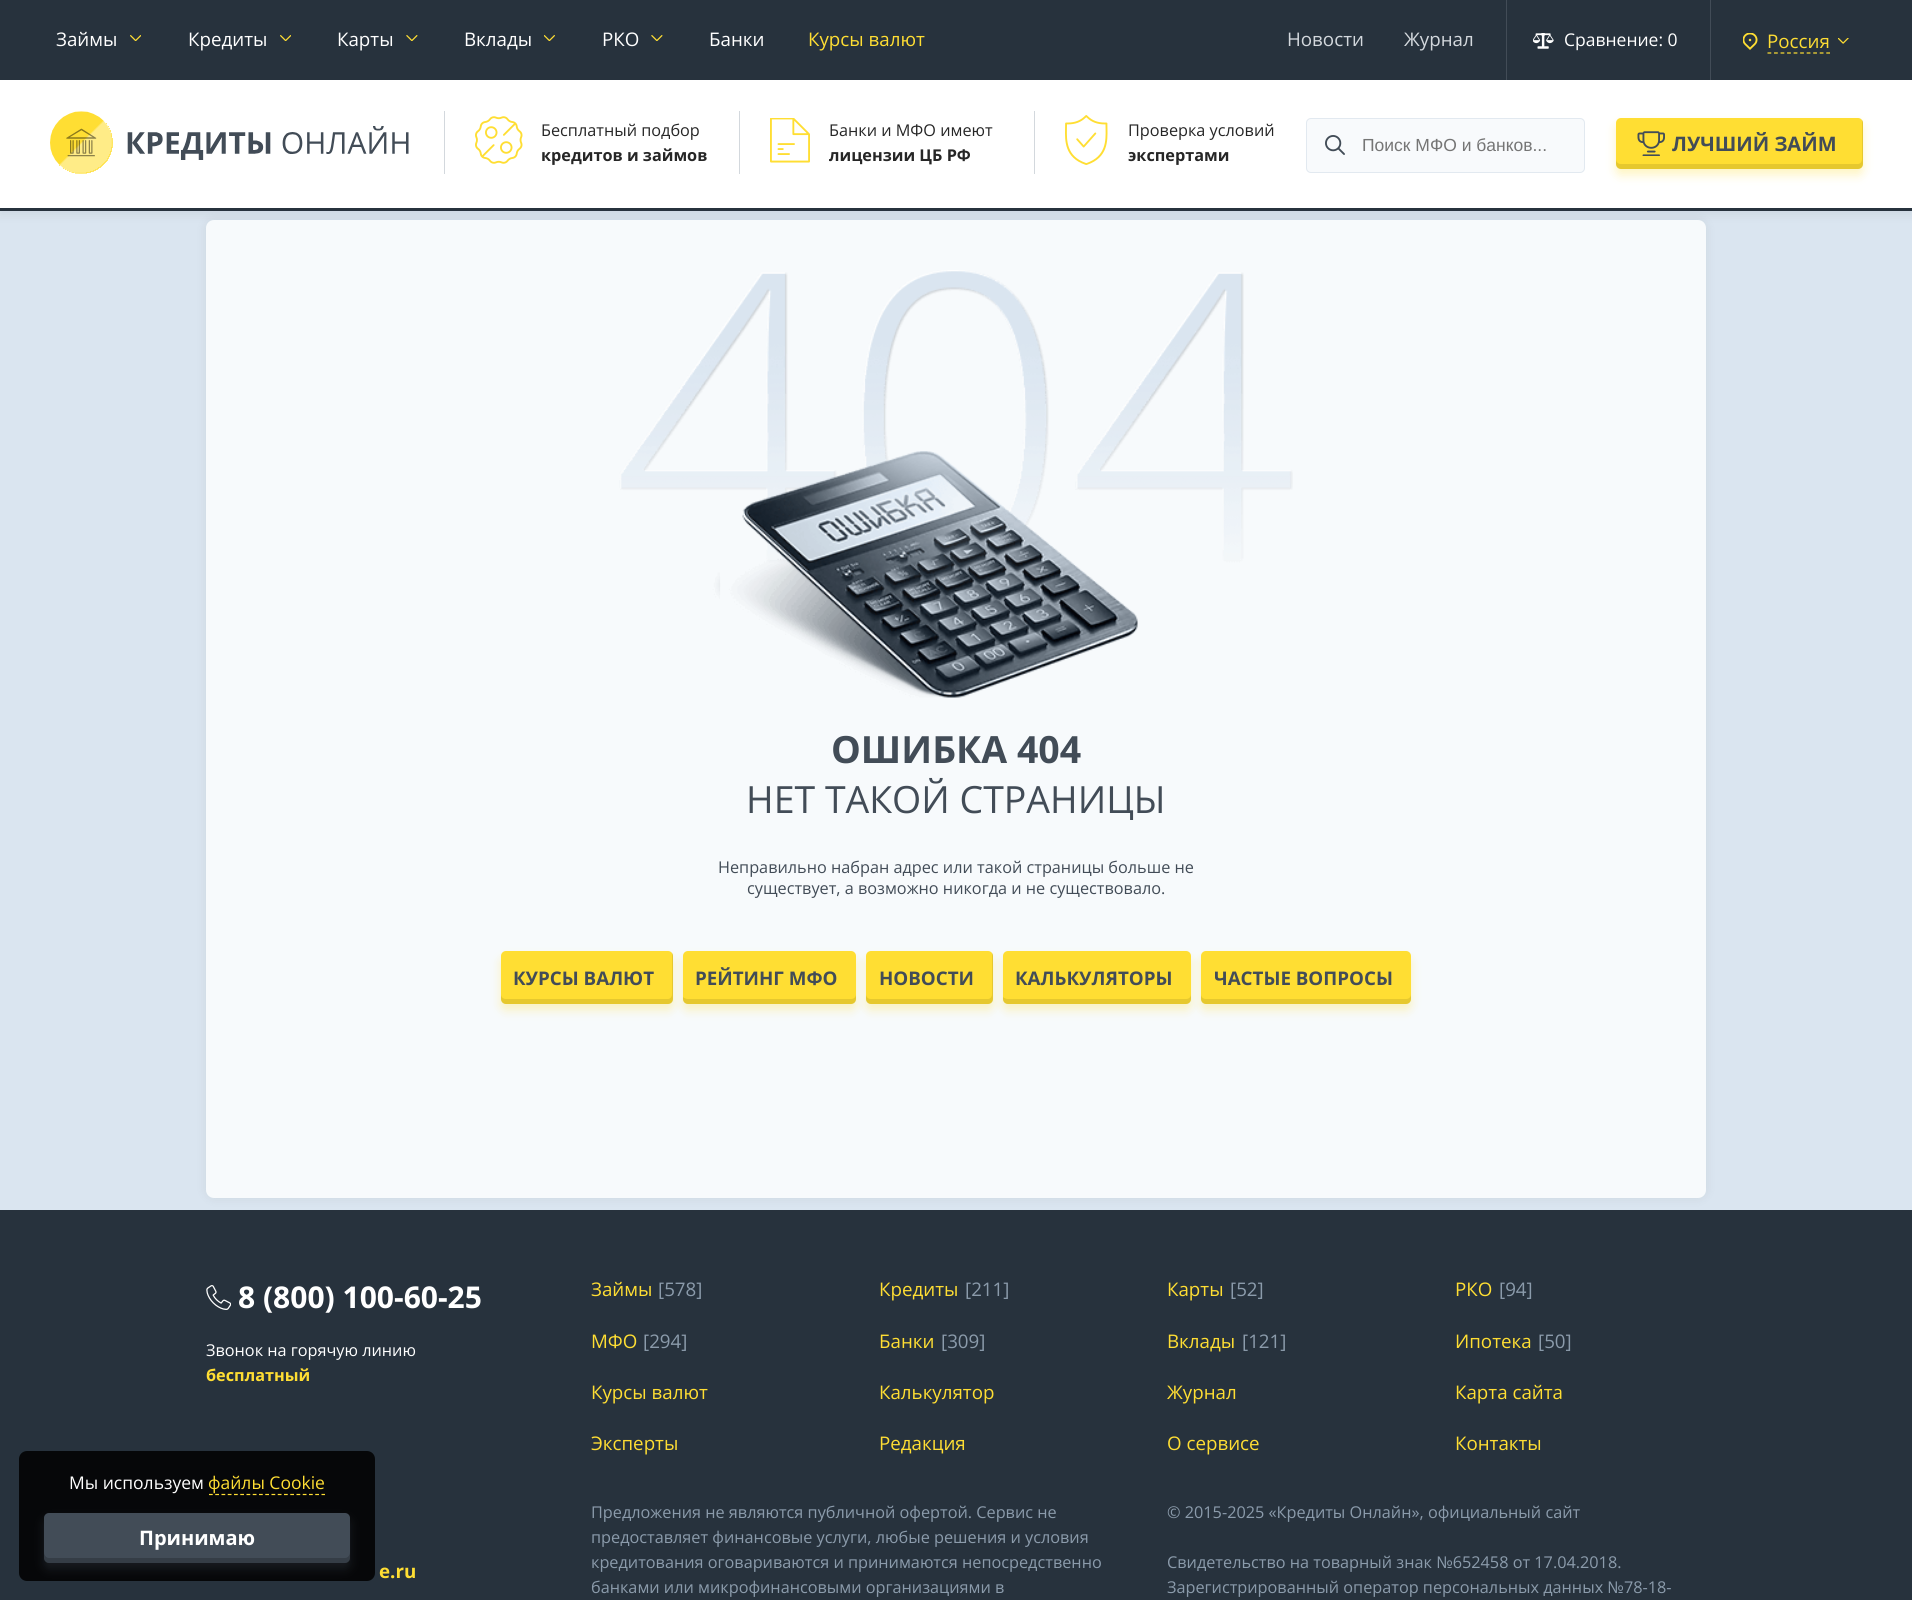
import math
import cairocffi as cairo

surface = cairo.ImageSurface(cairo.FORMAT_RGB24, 1912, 1600)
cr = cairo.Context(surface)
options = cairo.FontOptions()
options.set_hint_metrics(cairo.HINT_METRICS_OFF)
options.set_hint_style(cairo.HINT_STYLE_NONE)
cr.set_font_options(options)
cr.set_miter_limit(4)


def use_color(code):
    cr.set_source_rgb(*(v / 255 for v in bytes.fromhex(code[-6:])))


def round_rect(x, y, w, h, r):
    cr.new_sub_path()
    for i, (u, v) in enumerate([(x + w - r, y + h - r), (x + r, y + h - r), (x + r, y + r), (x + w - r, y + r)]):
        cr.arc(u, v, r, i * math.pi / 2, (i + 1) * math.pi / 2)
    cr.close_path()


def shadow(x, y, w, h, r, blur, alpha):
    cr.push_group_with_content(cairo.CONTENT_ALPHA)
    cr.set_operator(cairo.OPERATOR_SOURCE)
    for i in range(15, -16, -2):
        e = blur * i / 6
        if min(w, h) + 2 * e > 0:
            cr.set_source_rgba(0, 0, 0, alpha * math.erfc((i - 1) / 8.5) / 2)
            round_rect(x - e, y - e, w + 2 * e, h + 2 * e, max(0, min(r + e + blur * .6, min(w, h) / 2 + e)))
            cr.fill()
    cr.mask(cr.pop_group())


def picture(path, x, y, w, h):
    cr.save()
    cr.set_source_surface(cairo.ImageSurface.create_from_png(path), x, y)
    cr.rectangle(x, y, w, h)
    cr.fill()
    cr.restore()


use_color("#dae5f0")
cr.paint()
use_color("#000000")
shadow(0, 84, 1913, 130, 0, 6, 0.07)
use_color("#27323d")
cr.rectangle(0, 0, 1912, 80)
cr.fill()
cr.select_font_face("Open Sans")
cr.set_font_size(18.75)
use_color("#ffffff")
cr.move_to(56, 46)
cr.show_text("Займы")
picture("img1.png", 130, 35, 11, 6)
cr.move_to(188, 46)
cr.show_text("Кредиты")
picture("img1.png", 280, 35, 11, 6)
cr.move_to(337, 46)
cr.show_text("Карты")
picture("img2.png", 406, 35, 12, 6)
cr.move_to(464, 46)
cr.show_text("Вклады")
picture("img3.png", 544, 35, 11, 6)
cr.move_to(602, 46)
cr.show_text("РКО")
picture("img2.png", 651, 35, 12, 6)
cr.move_to(709, 46)
cr.show_text("Банки")
use_color("#ffde33")
cr.move_to(808, 46)
cr.show_text("Курсы валют")
use_color("#d3d8dd")
cr.move_to(1287, 46)
cr.show_text("Новости")
cr.move_to(1404, 46)
cr.show_text("Журнал")
use_color("#424c57")
cr.rectangle(1506, 0, 1, 80)
cr.fill()
picture("img4.png", 1533, 33, 21, 16)
cr.set_font_size(17.5)
use_color("#ffffff")
cr.move_to(1564, 46)
cr.show_text("Сравнение: 0")
use_color("#424c57")
cr.rectangle(1710, 0, 1, 80)
cr.fill()
picture("img5.png", 1743, 33, 15, 17)
cr.set_font_size(18.75)
use_color("#ffde33")
cr.move_to(1767, 48)
cr.show_text("Россия")
cr.new_path()
cr.move_to(1767.5, 53)
cr.line_to(1830, 53)
cr.set_line_width(1.2)
cr.set_dash([3.75, 2.78])
cr.stroke()
picture("img6.png", 1838, 38, 11, 6)
use_color("#ffffff")
cr.rectangle(0, 80, 1912, 128)
cr.fill()
use_color("#27323d")
cr.rectangle(0, 208, 1912, 3)
cr.fill()
picture("img7.png", 50, 111, 359, 63)
use_color("#d3d8dd")
cr.rectangle(444, 111, 1, 63)
cr.fill()
picture("img8.png", 475, 116, 48, 48)
cr.set_font_size(16.25)
use_color("#262626")
cr.move_to(541, 136)
cr.show_text("Бесплатный подбор")
cr.select_font_face("Open Sans", cairo.FONT_SLANT_NORMAL, cairo.FONT_WEIGHT_BOLD)
cr.move_to(541, 161)
cr.show_text("кредитов и займов")
use_color("#d3d8dd")
cr.rectangle(739, 111, 1, 63)
cr.fill()
picture("img9.png", 770, 118, 40, 45)
cr.select_font_face("Open Sans")
use_color("#262626")
cr.move_to(829, 136)
cr.show_text("Банки и МФО имеют")
cr.select_font_face("Open Sans", cairo.FONT_SLANT_NORMAL, cairo.FONT_WEIGHT_BOLD)
cr.move_to(829, 161)
cr.show_text("лицензии ЦБ РФ")
use_color("#d3d8dd")
cr.rectangle(1034, 111, 1, 63)
cr.fill()
picture("img10.png", 1065, 115, 43, 50)
cr.select_font_face("Open Sans")
use_color("#262626")
cr.move_to(1128, 136)
cr.show_text("Проверка условий")
cr.select_font_face("Open Sans", cairo.FONT_SLANT_NORMAL, cairo.FONT_WEIGHT_BOLD)
cr.move_to(1128, 161)
cr.show_text("экспертами")
use_color("#f8fafc")
round_rect(1306, 118, 279, 55, 5)
cr.fill()
picture("img11.png", 1325, 135, 20, 20)
round_rect(1306.5, 118.5, 278, 54, 4.5)
use_color("#e2e9f0")
cr.set_line_width(1)
cr.set_dash([])
cr.stroke()
cr.select_font_face("Liberation Sans")
cr.set_font_size(17.5)
use_color("#757575")
cr.move_to(1362, 151)
cr.show_text("Поиск МФО и банков...")
use_color("#ffde33")
shadow(1616, 124, 247, 51, 5, 5, 0.3)
use_color("#ffde33")
round_rect(1616, 118, 247, 51, 5)
cr.fill()
cr.set_source_rgba(0, 0, 0, 0.1)
cr.new_path()
cr.move_to(1616, 159)
cr.line_to(1616, 164)
cr.curve_to(1616, 167, 1618, 169, 1621, 169)
cr.line_to(1858, 169)
cr.curve_to(1861, 169, 1863, 167, 1863, 164)
cr.line_to(1863, 123)
cr.curve_to(1863, 122, 1863, 121, 1862, 120)
cr.line_to(1862, 159)
cr.curve_to(1862, 162, 1860, 164, 1858, 164)
cr.line_to(1621, 164)
cr.curve_to(1618, 164, 1616, 162, 1616, 159)
cr.close_path()
cr.fill()
picture("img12.png", 1637, 131, 28, 25)
cr.select_font_face("Open Sans", cairo.FONT_SLANT_NORMAL, cairo.FONT_WEIGHT_BOLD)
cr.set_font_size(20)
use_color("#424c57")
cr.move_to(1672, 151)
cr.show_text("ЛУЧШИЙ ЗАЙМ")
use_color("#000000")
shadow(206, 220, 1500, 978, 8, 6, 0.07)
use_color("#f7fafc")
round_rect(206, 220, 1500, 978, 8)
cr.fill()
picture("img13.png", 619, 270, 674, 428)
cr.set_font_size(37.5)
use_color("#424c57")
cr.move_to(831, 763)
cr.show_text("ОШИБКА 404")
cr.select_font_face("Open Sans")
cr.move_to(746, 813)
cr.show_text("НЕТ ТАКОЙ СТРАНИЦЫ")
cr.set_font_size(16.25)
cr.move_to(718, 873)
cr.show_text("Неправильно набран адрес или такой страницы больше не")
cr.move_to(747, 894)
cr.show_text("существует, а возможно никогда и не существовало.")
use_color("#ffde33")
shadow(501, 958, 172, 52, 5, 5, 0.3)
use_color("#ffde33")
round_rect(501, 951, 172, 53, 5)
cr.fill()
cr.set_source_rgba(0, 0, 0, 0.1)
cr.new_path()
cr.move_to(501, 994)
cr.line_to(501, 999)
cr.curve_to(501, 1002, 503, 1004, 506, 1004)
cr.line_to(668, 1004)
cr.curve_to(671, 1004, 673, 1002, 673, 999)
cr.line_to(673, 956)
cr.curve_to(673, 955, 673, 954, 672, 953)
cr.line_to(672, 994)
cr.curve_to(672, 997, 670, 999, 668, 999)
cr.line_to(506, 999)
cr.curve_to(503, 999, 501, 997, 501, 994)
cr.close_path()
cr.fill()
cr.select_font_face("Open Sans", cairo.FONT_SLANT_NORMAL, cairo.FONT_WEIGHT_BOLD)
cr.set_font_size(18.75)
use_color("#424c57")
cr.move_to(513, 985)
cr.show_text("КУРСЫ ВАЛЮТ")
use_color("#ffde33")
shadow(683, 958, 173, 52, 5, 5, 0.3)
use_color("#ffde33")
round_rect(683, 951, 173, 53, 5)
cr.fill()
cr.set_source_rgba(0, 0, 0, 0.1)
cr.new_path()
cr.move_to(683, 997)
cr.line_to(683, 999)
cr.curve_to(683, 1002, 685, 1004, 688, 1004)
cr.line_to(851, 1004)
cr.curve_to(854, 1004, 856, 1002, 856, 999)
cr.line_to(856, 994)
cr.curve_to(856, 997, 854, 999, 851, 999)
cr.line_to(688, 999)
cr.curve_to(686, 999, 684, 998, 683, 997)
cr.close_path()
cr.fill()
use_color("#424c57")
cr.move_to(695, 985)
cr.show_text("РЕЙТИНГ МФО")
use_color("#ffde33")
shadow(866, 958, 127, 52, 5, 5, 0.3)
use_color("#ffde33")
round_rect(866, 951, 127, 53, 5)
cr.fill()
cr.set_source_rgba(0, 0, 0, 0.1)
cr.new_path()
cr.move_to(866, 994)
cr.line_to(866, 999)
cr.curve_to(866, 1002, 868, 1004, 871, 1004)
cr.line_to(988, 1004)
cr.curve_to(991, 1004, 993, 1002, 993, 999)
cr.line_to(993, 956)
cr.curve_to(993, 955, 993, 954, 992, 953)
cr.line_to(992, 994)
cr.curve_to(992, 997, 990, 999, 988, 999)
cr.line_to(871, 999)
cr.curve_to(868, 999, 866, 997, 866, 994)
cr.close_path()
cr.fill()
use_color("#424c57")
cr.move_to(879, 985)
cr.show_text("НОВОСТИ")
use_color("#ffde33")
shadow(1003, 958, 188, 52, 5, 5, 0.3)
use_color("#ffde33")
round_rect(1003, 951, 188, 53, 5)
cr.fill()
cr.set_source_rgba(0, 0, 0, 0.1)
cr.new_path()
cr.move_to(1003, 997)
cr.line_to(1003, 999)
cr.curve_to(1003, 1002, 1005, 1004, 1008, 1004)
cr.line_to(1186, 1004)
cr.curve_to(1189, 1004, 1191, 1002, 1191, 999)
cr.line_to(1191, 994)
cr.curve_to(1191, 997, 1189, 999, 1186, 999)
cr.line_to(1008, 999)
cr.curve_to(1006, 999, 1004, 998, 1003, 997)
cr.close_path()
cr.fill()
use_color("#424c57")
cr.move_to(1015, 985)
cr.show_text("КАЛЬКУЛЯТОРЫ")
use_color("#ffde33")
shadow(1201, 958, 210, 52, 5, 5, 0.3)
use_color("#ffde33")
round_rect(1201, 951, 210, 53, 5)
cr.fill()
cr.set_source_rgba(0, 0, 0, 0.1)
cr.new_path()
cr.move_to(1201, 994)
cr.line_to(1201, 999)
cr.curve_to(1201, 1002, 1203, 1004, 1206, 1004)
cr.line_to(1406, 1004)
cr.curve_to(1409, 1004, 1411, 1002, 1411, 999)
cr.line_to(1411, 994)
cr.curve_to(1411, 997, 1409, 999, 1406, 999)
cr.line_to(1206, 999)
cr.curve_to(1203, 999, 1201, 997, 1201, 994)
cr.close_path()
cr.fill()
use_color("#424c57")
cr.move_to(1214, 985)
cr.show_text("ЧАСТЫЕ ВОПРОСЫ")
use_color("#27323d")
cr.rectangle(0, 1210, 1912, 390)
cr.fill()
picture("img14.png", 206, 1285, 25, 25)
cr.set_font_size(30)
use_color("#ffffff")
cr.move_to(238, 1308)
cr.show_text("8 (800) 100-60-25")
cr.select_font_face("Open Sans")
cr.set_font_size(16.25)
cr.move_to(206, 1356)
cr.show_text("Звонок на горячую линию")
cr.select_font_face("Open Sans", cairo.FONT_SLANT_NORMAL, cairo.FONT_WEIGHT_BOLD)
use_color("#ffde33")
cr.move_to(206, 1381)
cr.show_text("бесплатный")
cr.set_font_size(18.75)
cr.move_to(379, 1578)
cr.show_text("e.ru")
cr.select_font_face("Open Sans")
cr.move_to(591, 1296)
cr.show_text("Займы")
use_color("#8b9bab")
cr.move_to(658, 1296)
cr.show_text("[578]")
use_color("#ffde33")
cr.move_to(879, 1296)
cr.show_text("Кредиты")
use_color("#8b9bab")
cr.move_to(965, 1296)
cr.show_text("[211]")
use_color("#ffde33")
cr.move_to(1167, 1296)
cr.show_text("Карты")
use_color("#8b9bab")
cr.move_to(1230, 1296)
cr.show_text("[52]")
use_color("#ffde33")
cr.move_to(1455, 1296)
cr.show_text("РКО")
use_color("#8b9bab")
cr.move_to(1499, 1296)
cr.show_text("[94]")
use_color("#ffde33")
cr.move_to(591, 1348)
cr.show_text("МФО")
use_color("#8b9bab")
cr.move_to(643, 1348)
cr.show_text("[294]")
use_color("#ffde33")
cr.move_to(879, 1348)
cr.show_text("Банки")
use_color("#8b9bab")
cr.move_to(941, 1348)
cr.show_text("[309]")
use_color("#ffde33")
cr.move_to(1167, 1348)
cr.show_text("Вклады")
use_color("#8b9bab")
cr.move_to(1242, 1348)
cr.show_text("[121]")
use_color("#ffde33")
cr.move_to(1455, 1348)
cr.show_text("Ипотека")
use_color("#8b9bab")
cr.move_to(1538, 1348)
cr.show_text("[50]")
use_color("#ffde33")
cr.move_to(591, 1399)
cr.show_text("Курсы валют")
cr.move_to(879, 1399)
cr.show_text("Калькулятор")
cr.move_to(1167, 1399)
cr.show_text("Журнал")
cr.move_to(1455, 1399)
cr.show_text("Карта сайта")
cr.move_to(591, 1450)
cr.show_text("Эксперты")
cr.move_to(879, 1450)
cr.show_text("Редакция")
cr.move_to(1167, 1450)
cr.show_text("О сервисе")
cr.move_to(1455, 1450)
cr.show_text("Контакты")
cr.set_font_size(16.25)
use_color("#8b9bab")
cr.move_to(591, 1518)
cr.show_text("Предложения не являются публичной офертой. Сервис не")
cr.move_to(591, 1543)
cr.show_text("предоставляет финансовые услуги, любые решения и условия")
cr.move_to(591, 1568)
cr.show_text("кредитования оговариваются и принимаются непосредственно")
cr.move_to(591, 1593)
cr.show_text("банками или микрофинансовыми организациями в")
cr.move_to(1167, 1518)
cr.show_text("© 2015-2025 «Кредиты Онлайн», официальный сайт")
cr.move_to(1167, 1568)
cr.show_text("Свидетельство на товарный знак №652458 от 17.04.2018.")
cr.move_to(1167, 1593)
cr.show_text("Зарегистрированный оператор персональных данных №78-18-")
cr.set_source_rgba(0, 0, 0, 0.85)
round_rect(19, 1451, 356, 130, 8)
cr.fill()
cr.set_font_size(17.5)
use_color("#ffffff")
cr.move_to(69, 1489)
cr.show_text("Мы используем")
cr.new_path()
cr.move_to(209, 1494.5)
cr.line_to(325, 1494.5)
use_color("#ffde33")
cr.set_line_width(1.2)
cr.set_dash([3.75, 2.5])
cr.stroke()
cr.move_to(208, 1489)
cr.show_text("файлы Cookie")
use_color("#424c57")
shadow(44, 1519, 306, 50, 5, 5, 0.3)
use_color("#424c57")
round_rect(44, 1513, 306, 50, 5)
cr.fill()
cr.set_source_rgba(0, 0, 0, 0.2)
cr.new_path()
cr.move_to(44, 1552)
cr.line_to(44, 1558)
cr.curve_to(44, 1561, 46, 1563, 49, 1563)
cr.line_to(345, 1563)
cr.curve_to(348, 1563, 350, 1561, 350, 1558)
cr.line_to(350, 1552)
cr.curve_to(350, 1555, 348, 1558, 345, 1558)
cr.line_to(49, 1558)
cr.curve_to(46, 1558, 44, 1555, 44, 1552)
cr.close_path()
cr.fill()
cr.select_font_face("Open Sans", cairo.FONT_SLANT_NORMAL, cairo.FONT_WEIGHT_BOLD)
cr.set_font_size(20)
use_color("#ffffff")
cr.move_to(139, 1545)
cr.show_text("Принимаю")
surface.write_to_png("result.png")
